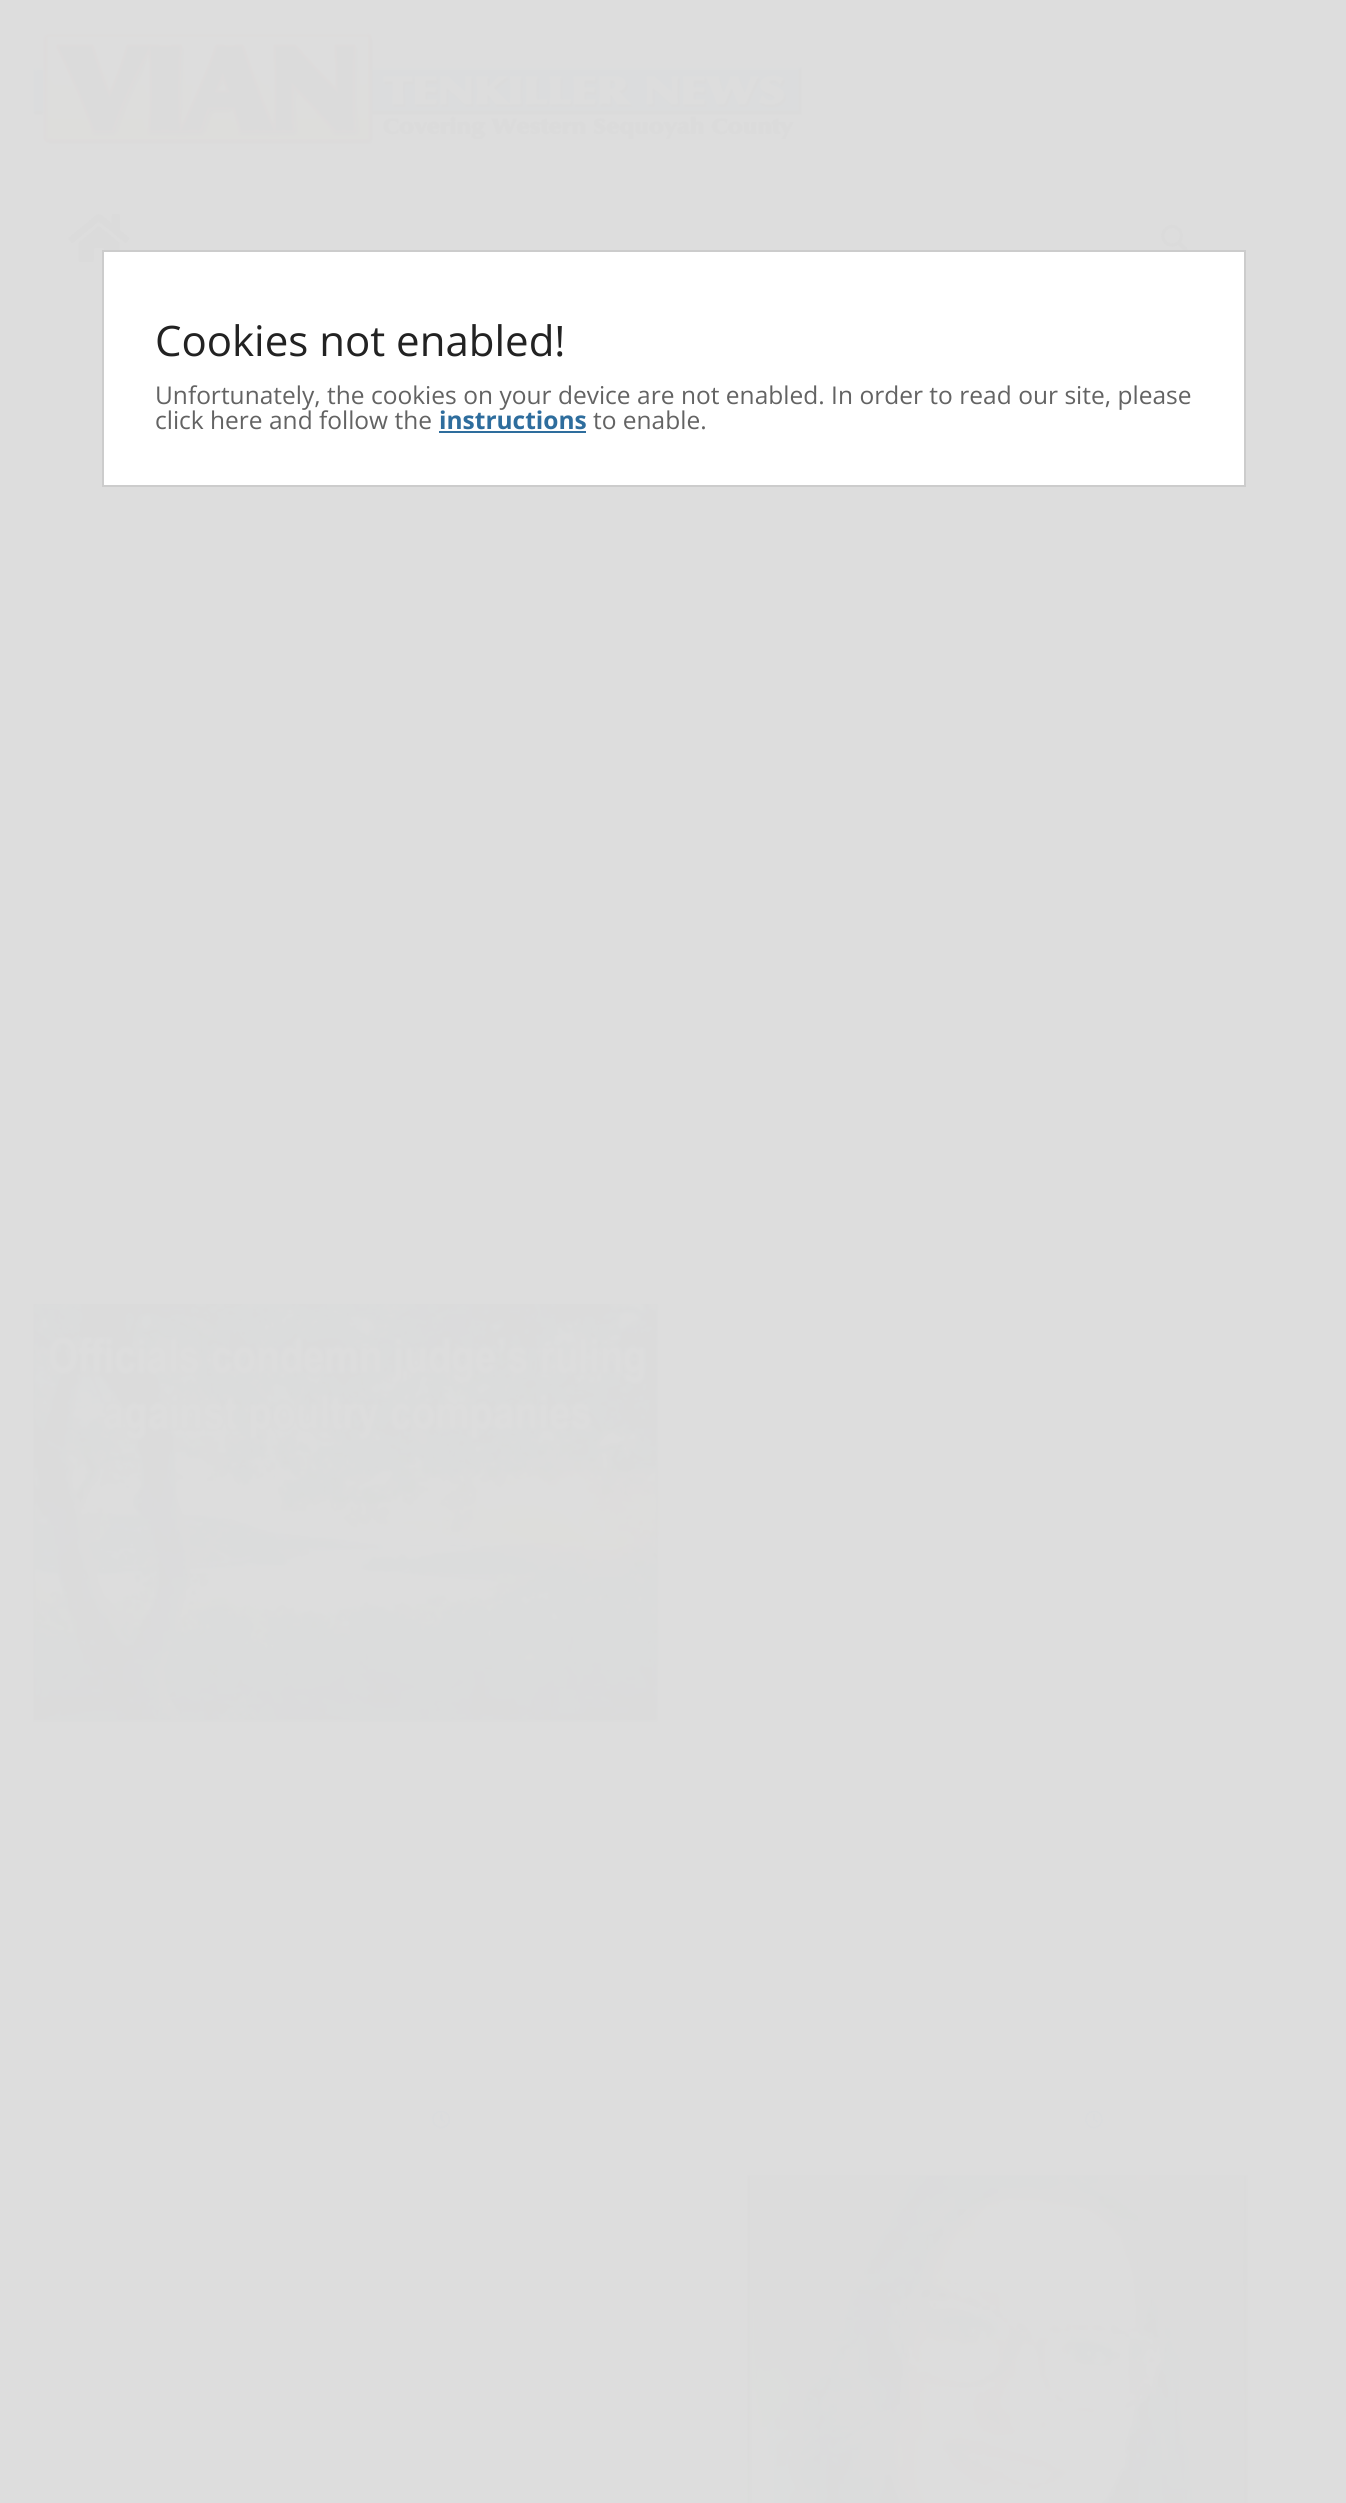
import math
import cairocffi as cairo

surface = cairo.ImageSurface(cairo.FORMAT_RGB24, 1346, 2503)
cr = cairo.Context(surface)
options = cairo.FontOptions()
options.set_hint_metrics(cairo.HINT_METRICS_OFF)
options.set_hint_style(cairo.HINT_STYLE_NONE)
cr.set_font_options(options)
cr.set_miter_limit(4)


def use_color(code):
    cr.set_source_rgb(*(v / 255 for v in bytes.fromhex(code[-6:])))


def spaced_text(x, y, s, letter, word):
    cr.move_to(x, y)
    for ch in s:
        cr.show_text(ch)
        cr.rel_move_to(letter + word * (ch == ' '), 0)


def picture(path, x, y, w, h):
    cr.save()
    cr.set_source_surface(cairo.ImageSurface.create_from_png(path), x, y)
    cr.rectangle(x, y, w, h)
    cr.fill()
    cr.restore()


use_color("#dddddd")
cr.paint()
picture("img1.png", 33, 32, 769, 114)
picture("img2.png", 68, 214, 62, 48)
picture("img3.png", 1161, 224, 27, 26)
picture("img4.png", 154, 1087, 46, 38)
picture("img5.png", 249, 1083, 44, 42)
picture("img6.png", 350, 1082, 37, 47)
picture("img7.png", 436, 1079, 52, 51)
picture("img8.png", 533, 1084, 47, 41)
picture("img9.png", 33, 1303, 627, 419)
picture("img10.png", 432, 2111, 18, 18)
picture("img11.png", 1085, 2111, 18, 18)
picture("img12.png", 747, 2175, 508, 328)
use_color("#ffffff")
cr.rectangle(103, 251, 1142, 235)
cr.fill_preserve()
use_color("#cccccc")
cr.stroke()
cr.select_font_face("Open Sans")
cr.set_font_size(42)
use_color("#222222")
cr.move_to(155, 356)
cr.show_text("Cookies not enabled!")
cr.set_font_size(24.5)
use_color("#636363")
spaced_text(155, 404, "Unfortunately, the cookies on your device are not enabled. In order to read our site, please", 0, 0.1)
cr.move_to(155, 429)
cr.show_text("click here and follow the")
cr.select_font_face("Open Sans", cairo.FONT_SLANT_NORMAL, cairo.FONT_WEIGHT_BOLD)
use_color("#2e6d9d")
cr.move_to(439, 429)
cr.show_text("instructions")
cr.rectangle(439, 431, 147, 2)
cr.fill()
cr.select_font_face("Open Sans")
use_color("#636363")
cr.move_to(593, 429)
cr.show_text("to enable.")
surface.write_to_png("result.png")
